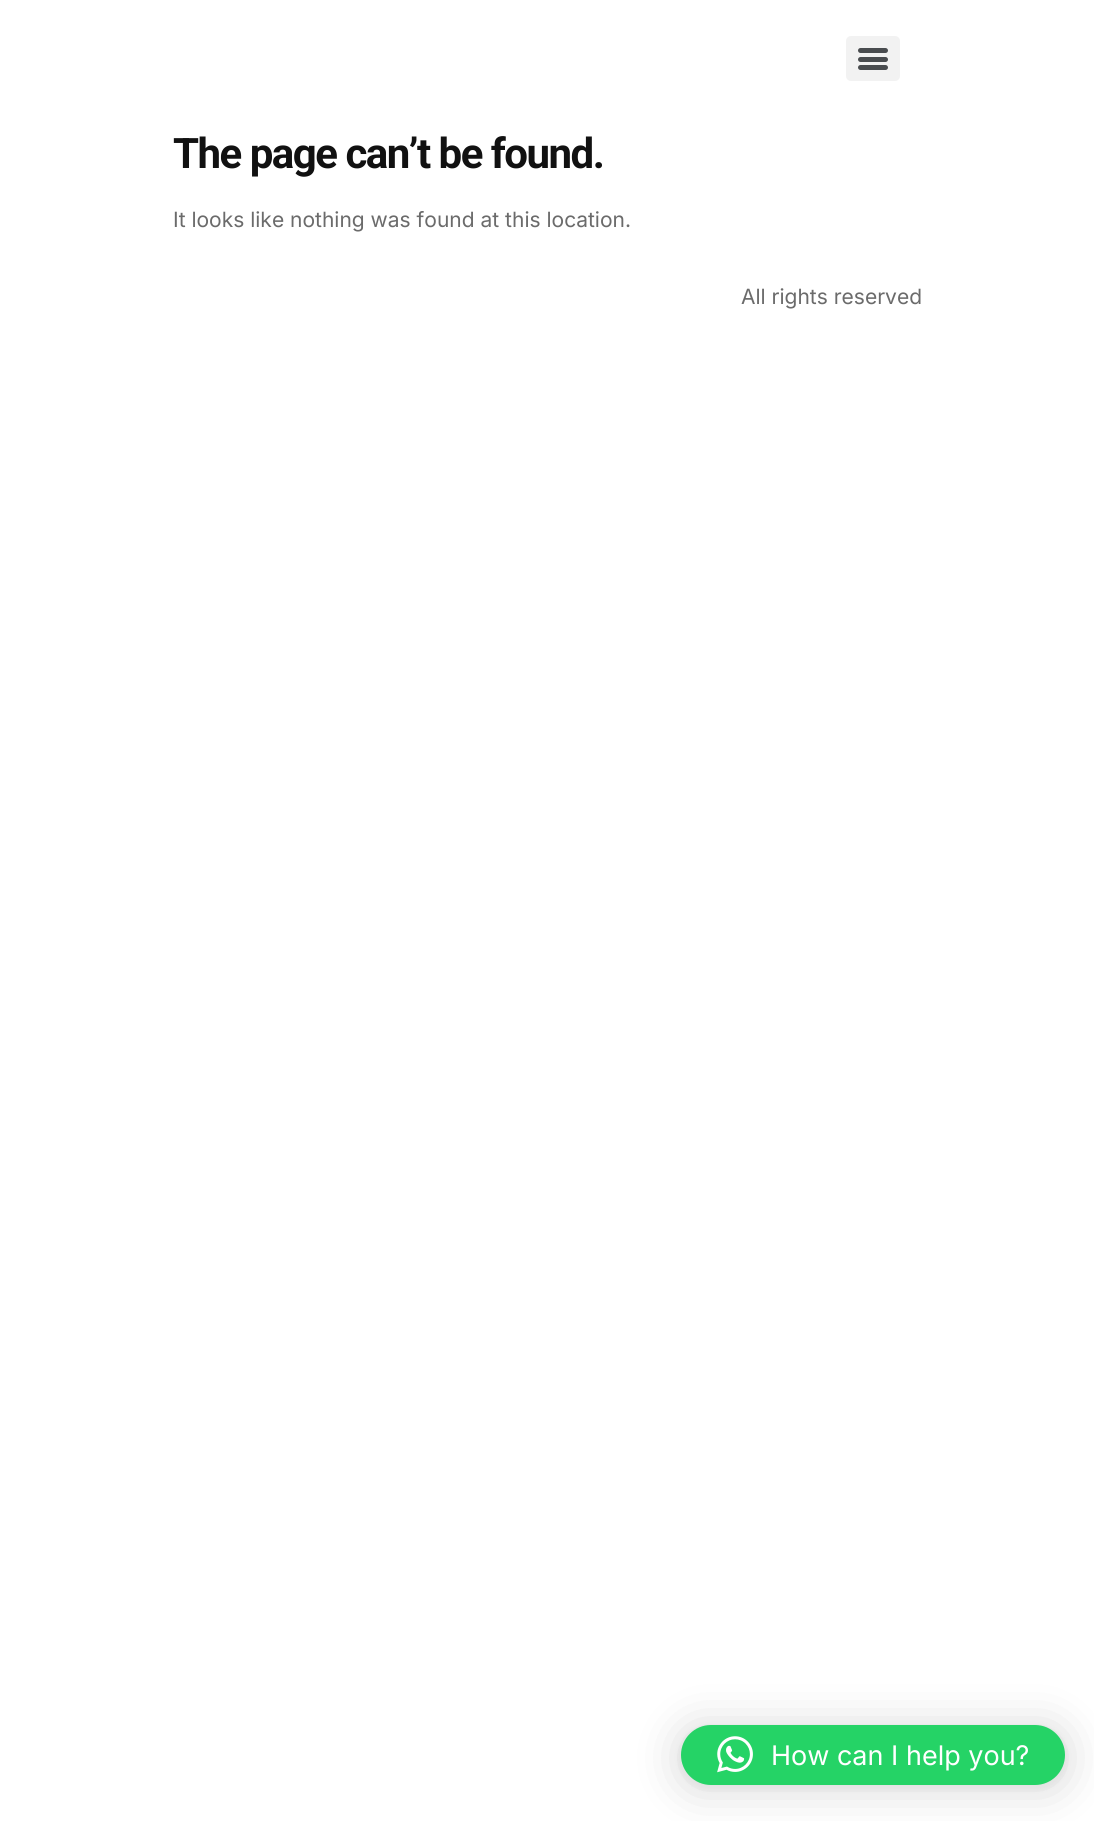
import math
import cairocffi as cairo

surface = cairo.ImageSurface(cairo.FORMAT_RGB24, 1094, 1821)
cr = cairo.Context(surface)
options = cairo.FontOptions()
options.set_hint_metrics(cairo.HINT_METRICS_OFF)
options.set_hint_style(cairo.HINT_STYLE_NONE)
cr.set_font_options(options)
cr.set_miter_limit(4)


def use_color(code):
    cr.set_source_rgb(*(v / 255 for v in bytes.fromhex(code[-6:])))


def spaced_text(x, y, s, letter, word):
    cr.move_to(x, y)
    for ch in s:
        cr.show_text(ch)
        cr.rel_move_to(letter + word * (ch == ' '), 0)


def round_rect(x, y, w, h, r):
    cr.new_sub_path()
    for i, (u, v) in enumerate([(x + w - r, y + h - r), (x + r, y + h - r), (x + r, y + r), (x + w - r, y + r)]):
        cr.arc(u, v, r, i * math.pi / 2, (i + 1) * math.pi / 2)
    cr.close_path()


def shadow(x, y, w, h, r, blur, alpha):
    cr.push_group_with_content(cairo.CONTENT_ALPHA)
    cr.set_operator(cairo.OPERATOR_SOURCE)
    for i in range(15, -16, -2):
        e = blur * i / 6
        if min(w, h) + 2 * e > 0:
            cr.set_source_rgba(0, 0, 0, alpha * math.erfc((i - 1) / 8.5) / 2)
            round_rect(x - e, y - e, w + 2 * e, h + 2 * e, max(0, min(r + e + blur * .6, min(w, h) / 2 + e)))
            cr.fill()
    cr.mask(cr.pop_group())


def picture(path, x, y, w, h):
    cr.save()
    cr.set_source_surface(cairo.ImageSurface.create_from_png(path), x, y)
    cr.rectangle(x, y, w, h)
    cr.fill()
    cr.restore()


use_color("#ffffff")
cr.paint()
use_color("#f2f2f2")
round_rect(846, 36, 54, 45, 5)
cr.fill()
use_color("#494c4f")
round_rect(858, 57, 30, 5, 2.5)
cr.fill()
round_rect(858, 48, 30, 5, 2.5)
cr.fill()
round_rect(858, 65, 30, 5, 2.5)
cr.fill()
cr.select_font_face("Roboto", cairo.FONT_SLANT_NORMAL, cairo.FONT_WEIGHT_BOLD)
cr.set_font_size(42)
use_color("#111111")
spaced_text(173, 168, "The page can’t be found.", -1.5, 0)
cr.select_font_face("Inter")
cr.set_font_size(21)
use_color("#6b6b6b")
cr.move_to(173, 227)
cr.show_text("It looks like nothing was found at this location.")
cr.move_to(741, 304)
cr.show_text("All rights reserved")
use_color("#000000")
shadow(681, 1728, 384, 60, 30, 24, 0.16)
shadow(681, 1727, 384, 60, 30, 4.5, 0.06)
use_color("#25d366")
round_rect(681, 1725, 384, 60, 30)
cr.fill()
picture("img1.png", 717, 1736, 36, 37)
cr.set_font_size(27)
use_color("#ffffff")
cr.move_to(771, 1765)
cr.show_text("How can I help you?")
surface.write_to_png("result.png")
